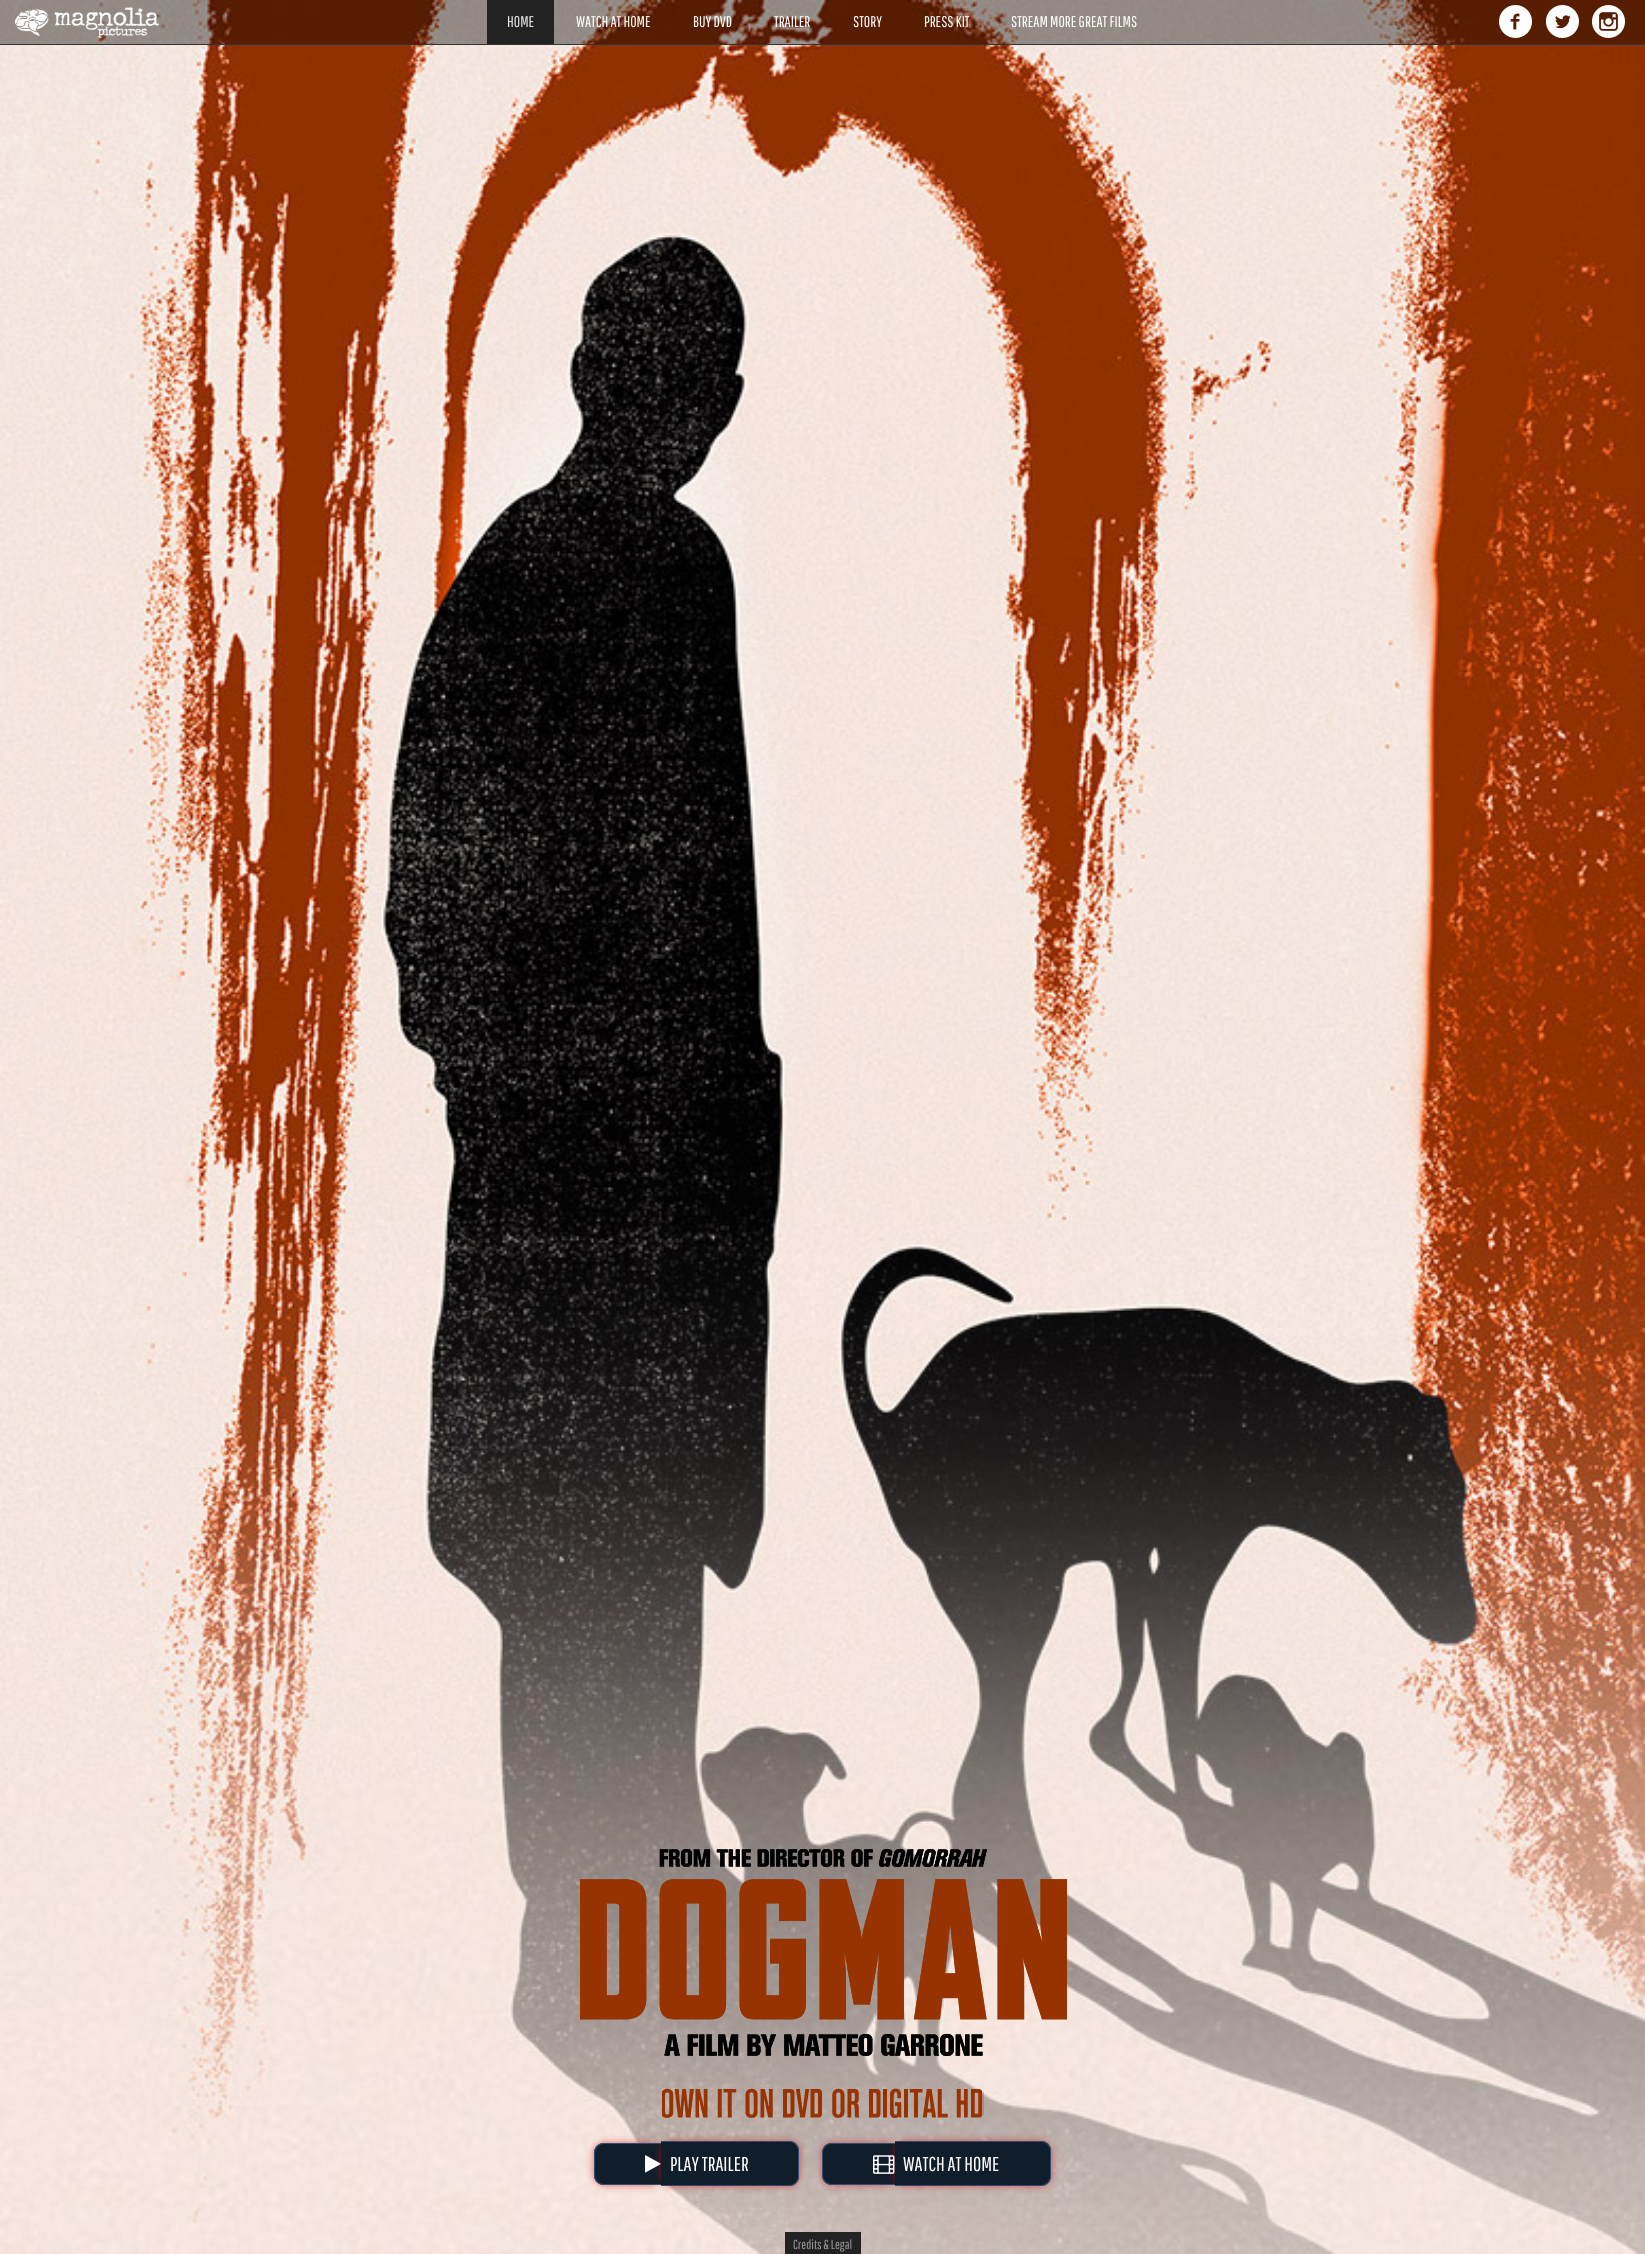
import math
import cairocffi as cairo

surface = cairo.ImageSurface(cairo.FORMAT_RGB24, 1645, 2254)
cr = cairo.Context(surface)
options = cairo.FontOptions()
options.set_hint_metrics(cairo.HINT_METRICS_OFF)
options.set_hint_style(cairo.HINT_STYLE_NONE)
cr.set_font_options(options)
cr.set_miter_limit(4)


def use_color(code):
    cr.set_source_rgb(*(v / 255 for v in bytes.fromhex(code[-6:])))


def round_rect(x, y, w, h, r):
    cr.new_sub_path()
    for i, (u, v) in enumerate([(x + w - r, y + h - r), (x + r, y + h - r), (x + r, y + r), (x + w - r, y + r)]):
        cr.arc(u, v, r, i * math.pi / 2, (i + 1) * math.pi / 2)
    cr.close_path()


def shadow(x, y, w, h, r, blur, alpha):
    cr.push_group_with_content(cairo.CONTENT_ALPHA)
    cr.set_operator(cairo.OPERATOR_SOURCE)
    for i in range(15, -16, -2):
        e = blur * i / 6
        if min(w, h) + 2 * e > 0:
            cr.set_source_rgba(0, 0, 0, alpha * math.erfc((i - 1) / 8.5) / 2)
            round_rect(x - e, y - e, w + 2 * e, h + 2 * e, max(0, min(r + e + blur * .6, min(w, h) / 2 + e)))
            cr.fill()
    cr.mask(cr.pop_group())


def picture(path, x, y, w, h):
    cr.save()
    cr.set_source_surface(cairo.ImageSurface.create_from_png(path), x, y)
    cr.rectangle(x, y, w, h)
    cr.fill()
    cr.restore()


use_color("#ffffff")
cr.paint()
picture("img5.png", 0, 0, 1645, 2254)
cr.set_source_rgba(0, 0, 0, 0.4)
cr.rectangle(0, 0, 1645, 44)
cr.fill()
use_color("#333333")
cr.rectangle(0, 44, 1645, 1)
cr.fill()
picture("img1.png", 15, 7, 144, 31)
use_color("#222222")
cr.rectangle(487, 0, 67, 44)
cr.fill()
cr.select_font_face("Pathway Gothic One")
cr.set_font_size(15.5)
use_color("#e6e6e6")
cr.move_to(507, 27)
cr.show_text("HOME")
use_color("#ffffff")
cr.move_to(576, 27)
cr.show_text("WATCH AT HOME")
cr.move_to(693, 27)
cr.show_text("BUY DVD")
cr.move_to(774, 27)
cr.show_text("TRAILER")
cr.move_to(853, 27)
cr.show_text("STORY")
cr.move_to(924, 27)
cr.show_text("PRESS KIT")
cr.move_to(1011, 27)
cr.show_text("STREAM MORE GREAT FILMS")
picture("img2.png", 1499, 5, 33, 33)
picture("img3.png", 1545, 5, 34, 33)
picture("img4.png", 1592, 5, 33, 33)
picture("img6.png", 580, 1849, 487, 269)
use_color("#c90a10")
shadow(594, 2143, 67, 42, 10, 4, 0.6)
use_color("#101d2b")
cr.new_path()
cr.move_to(604, 2143)
cr.line_to(661, 2143)
cr.line_to(661, 2185)
cr.line_to(604, 2185)
cr.curve_to(598.5, 2185, 594, 2180.5, 594, 2175)
cr.line_to(594, 2153)
cr.curve_to(594, 2147.5, 598.5, 2143, 604, 2143)
cr.close_path()
cr.fill()
use_color("#314c70")
cr.set_fill_rule(cairo.FILL_RULE_EVEN_ODD)
cr.new_path()
cr.move_to(604, 2143)
cr.line_to(661, 2143)
cr.line_to(661, 2185)
cr.line_to(604, 2185)
cr.curve_to(598, 2185, 594, 2181, 594, 2175)
cr.line_to(594, 2153)
cr.curve_to(594, 2147, 598, 2143, 604, 2143)
cr.close_path()
cr.move_to(604, 2144)
cr.line_to(661, 2144)
cr.line_to(661, 2184)
cr.line_to(604, 2184)
cr.curve_to(599, 2184, 595, 2180, 595, 2175)
cr.line_to(595, 2153)
cr.curve_to(595, 2148, 599, 2144, 604, 2144)
cr.close_path()
cr.fill()
use_color("#c90a10")
shadow(661, 2141, 138, 45, 10, 4, 0.6)
use_color("#101d2b")
cr.new_path()
cr.move_to(661, 2141)
cr.line_to(789, 2141)
cr.curve_to(794.5, 2141, 799, 2145.5, 799, 2151)
cr.line_to(799, 2176)
cr.curve_to(799, 2181.5, 794.5, 2186, 789, 2186)
cr.line_to(661, 2186)
cr.close_path()
cr.fill()
use_color("#314c70")
cr.new_path()
cr.move_to(661, 2141)
cr.line_to(789, 2141)
cr.curve_to(795, 2141, 799, 2145, 799, 2151)
cr.line_to(799, 2176)
cr.curve_to(799, 2182, 795, 2186, 789, 2186)
cr.line_to(661, 2186)
cr.close_path()
cr.move_to(661, 2142)
cr.line_to(789, 2142)
cr.curve_to(794, 2142, 798, 2146, 798, 2151)
cr.line_to(798, 2176)
cr.curve_to(798, 2181, 794, 2185, 789, 2185)
cr.line_to(661, 2185)
cr.close_path()
cr.fill()
picture("img7.png", 645, 2155, 16, 18)
cr.set_font_size(20)
use_color("#ffffff")
cr.move_to(670, 2171)
cr.show_text("PLAY TRAILER")
use_color("#c90a10")
shadow(822, 2143, 73, 42, 10, 4, 0.6)
use_color("#101d2b")
cr.new_path()
cr.move_to(832, 2143)
cr.line_to(895, 2143)
cr.line_to(895, 2185)
cr.line_to(832, 2185)
cr.curve_to(826.5, 2185, 822, 2180.5, 822, 2175)
cr.line_to(822, 2153)
cr.curve_to(822, 2147.5, 826.5, 2143, 832, 2143)
cr.close_path()
cr.fill()
use_color("#314c70")
cr.new_path()
cr.move_to(832, 2143)
cr.line_to(895, 2143)
cr.line_to(895, 2185)
cr.line_to(832, 2185)
cr.curve_to(826, 2185, 822, 2181, 822, 2175)
cr.line_to(822, 2153)
cr.curve_to(822, 2147, 826, 2143, 832, 2143)
cr.close_path()
cr.move_to(832, 2144)
cr.line_to(895, 2144)
cr.line_to(895, 2184)
cr.line_to(832, 2184)
cr.curve_to(827, 2184, 823, 2180, 823, 2175)
cr.line_to(823, 2153)
cr.curve_to(823, 2148, 827, 2144, 832, 2144)
cr.close_path()
cr.fill()
use_color("#c90a10")
shadow(895, 2141, 156, 45, 10, 4, 0.6)
use_color("#101d2b")
cr.new_path()
cr.move_to(895, 2141)
cr.line_to(1041, 2141)
cr.curve_to(1046.5, 2141, 1051, 2145.5, 1051, 2151)
cr.line_to(1051, 2176)
cr.curve_to(1051, 2181.5, 1046.5, 2186, 1041, 2186)
cr.line_to(895, 2186)
cr.close_path()
cr.fill()
use_color("#314c70")
cr.new_path()
cr.move_to(895, 2141)
cr.line_to(1041, 2141)
cr.curve_to(1047, 2141, 1051, 2145, 1051, 2151)
cr.line_to(1051, 2176)
cr.curve_to(1051, 2182, 1047, 2186, 1041, 2186)
cr.line_to(895, 2186)
cr.close_path()
cr.move_to(895, 2142)
cr.line_to(1041, 2142)
cr.curve_to(1046, 2142, 1050, 2146, 1050, 2151)
cr.line_to(1050, 2176)
cr.curve_to(1050, 2181, 1046, 2185, 1041, 2185)
cr.line_to(895, 2185)
cr.close_path()
cr.fill()
picture("img8.png", 873, 2155, 22, 19)
use_color("#ffffff")
cr.move_to(903, 2171)
cr.show_text("WATCH AT HOME")
use_color("#222222")
cr.rectangle(785, 2232, 76, 22)
cr.fill()
cr.set_font_size(13)
use_color("#999999")
cr.move_to(793, 2249)
cr.show_text("Credits & Legal")
surface.write_to_png("result.png")
